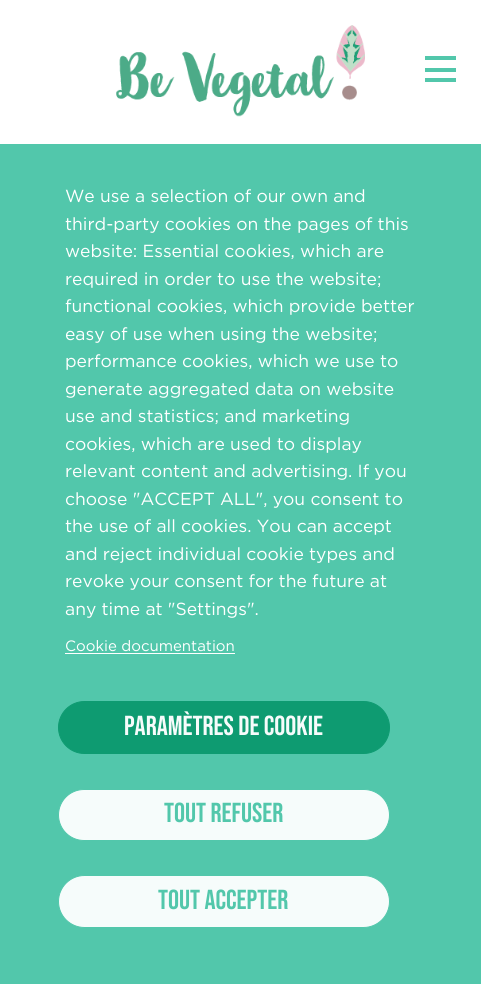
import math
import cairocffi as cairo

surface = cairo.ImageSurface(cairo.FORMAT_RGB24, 481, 984)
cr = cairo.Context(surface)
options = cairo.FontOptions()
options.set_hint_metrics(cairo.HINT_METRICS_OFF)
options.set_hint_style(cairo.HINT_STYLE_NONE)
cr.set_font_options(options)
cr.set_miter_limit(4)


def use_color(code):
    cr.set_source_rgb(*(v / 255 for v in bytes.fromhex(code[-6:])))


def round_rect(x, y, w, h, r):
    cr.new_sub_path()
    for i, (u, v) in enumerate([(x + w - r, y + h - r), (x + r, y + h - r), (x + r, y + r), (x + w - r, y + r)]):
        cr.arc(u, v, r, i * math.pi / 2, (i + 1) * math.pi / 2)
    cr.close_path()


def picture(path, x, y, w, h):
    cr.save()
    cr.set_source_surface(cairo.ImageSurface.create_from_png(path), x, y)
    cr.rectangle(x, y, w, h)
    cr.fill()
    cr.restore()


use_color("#ffffff")
cr.paint()
picture("img1.png", 116, 25, 249, 92)
use_color("#52c7ab")
cr.rectangle(425, 56, 31, 4)
cr.fill()
cr.rectangle(425, 68, 31, 4)
cr.fill()
cr.rectangle(425, 78, 31, 4)
cr.fill()
cr.rectangle(0, 144, 481, 840)
cr.fill()
cr.select_font_face("Gotham")
cr.set_font_size(17.5)
use_color("#ffffff")
cr.move_to(65, 202)
cr.show_text("We use a selection of our own and")
cr.move_to(65, 230)
cr.show_text("third-party cookies on the pages of this")
cr.move_to(65, 257)
cr.show_text("website: Essential cookies, which are")
cr.move_to(65, 285)
cr.show_text("required in order to use the website;")
cr.move_to(65, 312)
cr.show_text("functional cookies, which provide better")
cr.move_to(65, 340)
cr.show_text("easy of use when using the website;")
cr.move_to(65, 367)
cr.show_text("performance cookies, which we use to")
cr.move_to(65, 395)
cr.show_text("generate aggregated data on website")
cr.move_to(65, 422)
cr.show_text("use and statistics; and marketing")
cr.move_to(65, 450)
cr.show_text("cookies, which are used to display")
cr.move_to(65, 477)
cr.show_text("relevant content and advertising. If you")
cr.move_to(65, 505)
cr.show_text("choose \"ACCEPT ALL\", you consent to")
cr.move_to(65, 532)
cr.show_text("the use of all cookies. You can accept")
cr.move_to(65, 560)
cr.show_text("and reject individual cookie types and")
cr.move_to(65, 587)
cr.show_text("revoke your consent for the future at")
cr.move_to(65, 615)
cr.show_text("any time at \"Settings\".")
cr.set_font_size(15)
cr.move_to(65, 651)
cr.show_text("Cookie documentation")
cr.rectangle(65, 653, 170, 1)
cr.fill()
use_color("#0e9b71")
round_rect(58.5, 701.5, 331, 52, 26)
cr.fill_preserve()
cr.set_line_width(1)
cr.stroke()
cr.select_font_face("Bebas Neue")
cr.set_font_size(27.5)
use_color("#f6fcfb")
cr.move_to(124, 735)
cr.show_text("PARAMÈTRES DE COOKIE")
round_rect(58.5, 789.5, 331, 51, 25.5)
cr.fill_preserve()
use_color("#52c7ab")
cr.stroke()
cr.move_to(164, 822)
cr.show_text("TOUT REFUSER")
use_color("#f6fcfb")
round_rect(58.5, 875.5, 331, 52, 26)
cr.fill_preserve()
use_color("#52c7ab")
cr.stroke()
cr.move_to(158, 909)
cr.show_text("TOUT ACCEPTER")
surface.write_to_png("result.png")
